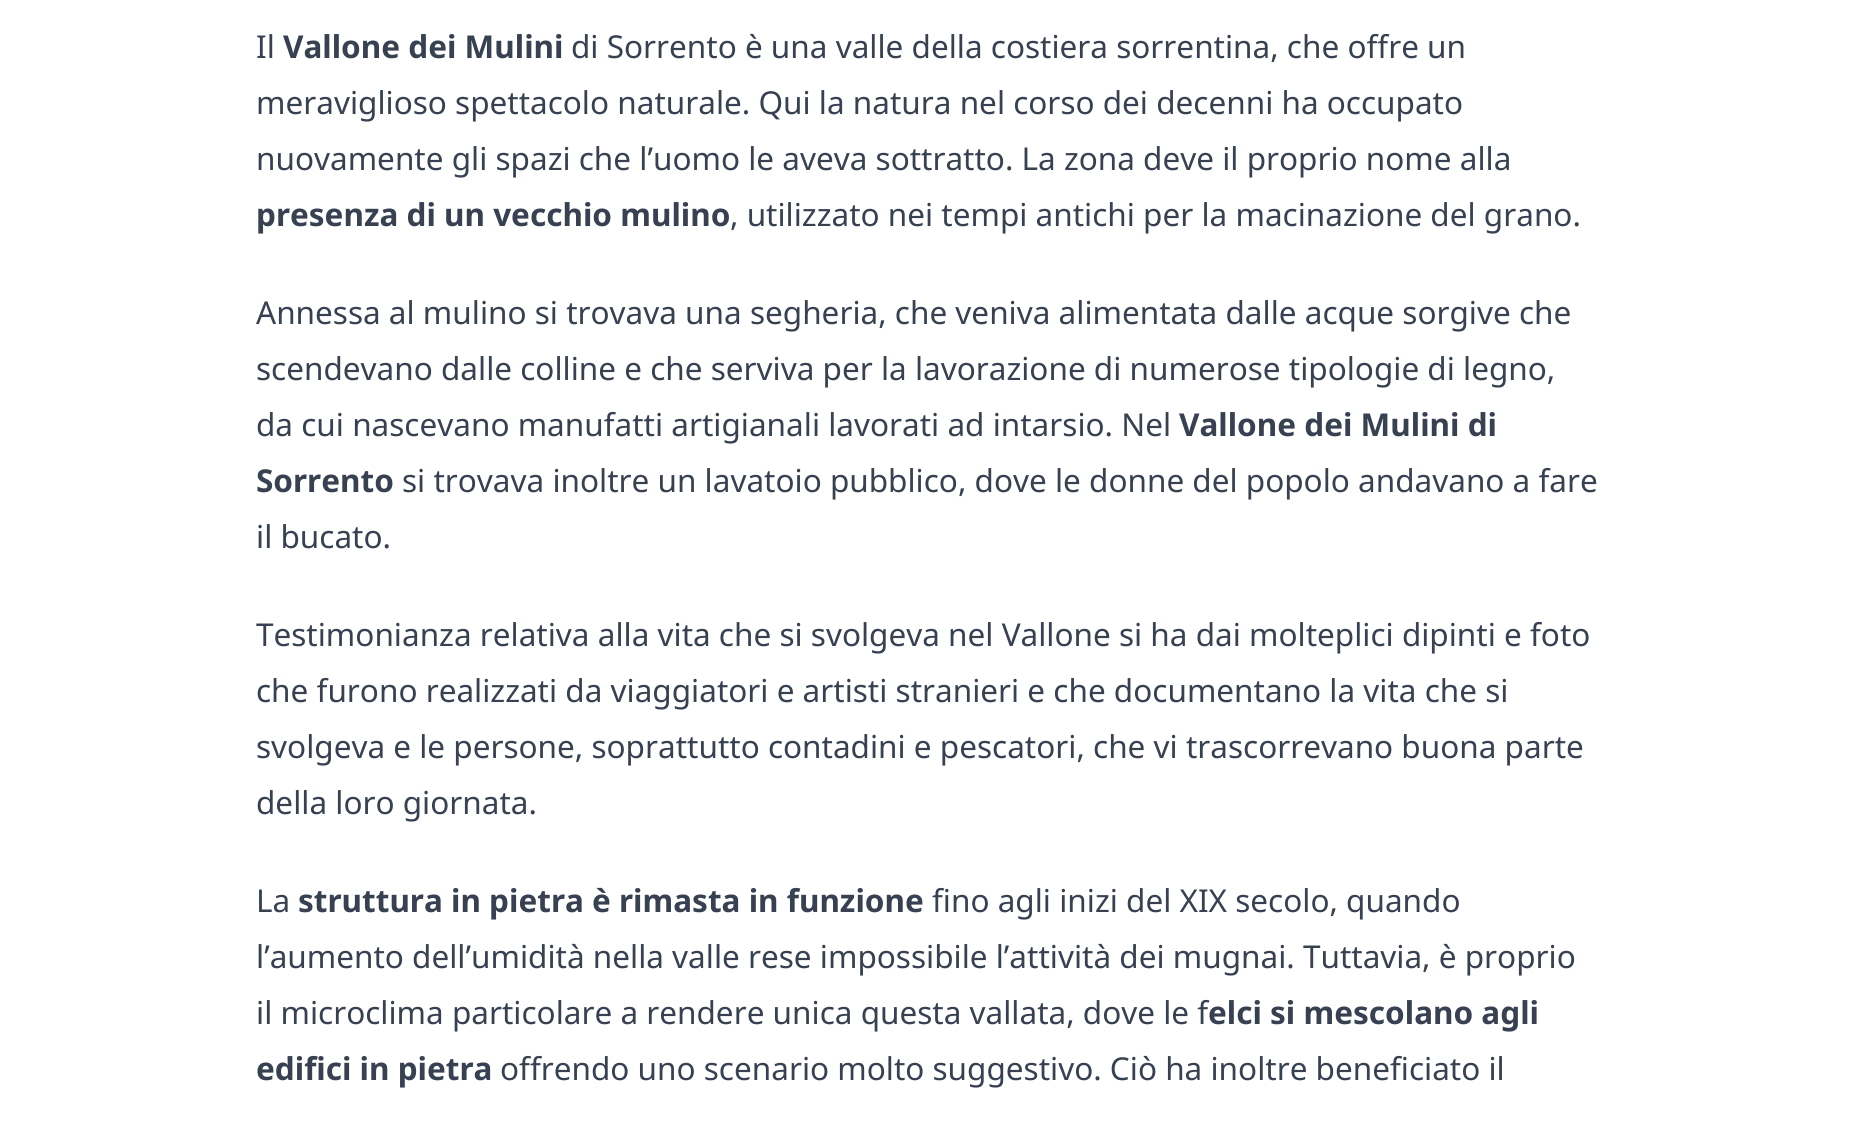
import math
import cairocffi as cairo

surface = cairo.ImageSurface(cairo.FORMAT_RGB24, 1854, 1129)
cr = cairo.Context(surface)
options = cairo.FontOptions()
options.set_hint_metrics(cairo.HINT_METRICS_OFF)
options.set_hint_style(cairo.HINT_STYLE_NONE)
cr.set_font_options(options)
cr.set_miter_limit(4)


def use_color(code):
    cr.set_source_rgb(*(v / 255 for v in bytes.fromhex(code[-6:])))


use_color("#ffffff")
cr.paint()
cr.select_font_face("Noto Sans")
cr.set_font_size(31.5)
use_color("#374151")
cr.move_to(256, 58)
cr.show_text("Il")
cr.select_font_face("Noto Sans", cairo.FONT_SLANT_NORMAL, cairo.FONT_WEIGHT_BOLD)
cr.move_to(283, 58)
cr.show_text("Vallone dei Mulini")
cr.select_font_face("Noto Sans")
cr.move_to(571, 58)
cr.show_text("di Sorrento è una valle della costiera sorrentina, che offre un")
cr.move_to(256, 114)
cr.show_text("meraviglioso spettacolo naturale. Qui la natura nel corso dei decenni ha occupato")
cr.move_to(256, 170)
cr.show_text("nuovamente gli spazi che l’uomo le aveva sottratto. La zona deve il proprio nome alla")
cr.select_font_face("Noto Sans", cairo.FONT_SLANT_NORMAL, cairo.FONT_WEIGHT_BOLD)
cr.move_to(256, 226)
cr.show_text("presenza di un vecchio mulino")
cr.select_font_face("Noto Sans")
cr.move_to(730, 226)
cr.show_text(", utilizzato nei tempi antichi per la macinazione del grano.")
cr.move_to(256, 324)
cr.show_text("Annessa al mulino si trovava una segheria, che veniva alimentata dalle acque sorgive che")
cr.move_to(256, 380)
cr.show_text("scendevano dalle colline e che serviva per la lavorazione di numerose tipologie di legno,")
cr.move_to(256, 436)
cr.show_text("da cui nascevano manufatti artigianali lavorati ad intarsio. Nel")
cr.select_font_face("Noto Sans", cairo.FONT_SLANT_NORMAL, cairo.FONT_WEIGHT_BOLD)
cr.move_to(1179, 436)
cr.show_text("Vallone dei Mulini di")
cr.move_to(256, 492)
cr.show_text("Sorrento")
cr.select_font_face("Noto Sans")
cr.move_to(402, 492)
cr.show_text("si trovava inoltre un lavatoio pubblico, dove le donne del popolo andavano a fare")
cr.move_to(256, 548)
cr.show_text("il bucato.")
cr.move_to(256, 646)
cr.show_text("Testimonianza relativa alla vita che si svolgeva nel Vallone si ha dai molteplici dipinti e foto")
cr.move_to(256, 702)
cr.show_text("che furono realizzati da viaggiatori e artisti stranieri e che documentano la vita che si")
cr.move_to(256, 758)
cr.show_text("svolgeva e le persone, soprattutto contadini e pescatori, che vi trascorrevano buona parte")
cr.move_to(256, 814)
cr.show_text("della loro giornata.")
cr.move_to(256, 912)
cr.show_text("La")
cr.select_font_face("Noto Sans", cairo.FONT_SLANT_NORMAL, cairo.FONT_WEIGHT_BOLD)
cr.move_to(298, 912)
cr.show_text("struttura in pietra è rimasta in funzione")
cr.select_font_face("Noto Sans")
cr.move_to(932, 912)
cr.show_text("fino agli inizi del XIX secolo, quando")
cr.move_to(256, 968)
cr.show_text("l’aumento dell’umidità nella valle rese impossibile l’attività dei mugnai. Tuttavia, è proprio")
cr.move_to(256, 1024)
cr.show_text("il microclima particolare a rendere unica questa vallata, dove le f")
cr.select_font_face("Noto Sans", cairo.FONT_SLANT_NORMAL, cairo.FONT_WEIGHT_BOLD)
cr.move_to(1208, 1024)
cr.show_text("elci si mescolano agli")
cr.move_to(256, 1080)
cr.show_text("edifici in pietra")
cr.select_font_face("Noto Sans")
cr.move_to(500, 1080)
cr.show_text("offrendo uno scenario molto suggestivo. Ciò ha inoltre beneficiato il")
surface.write_to_png("result.png")
